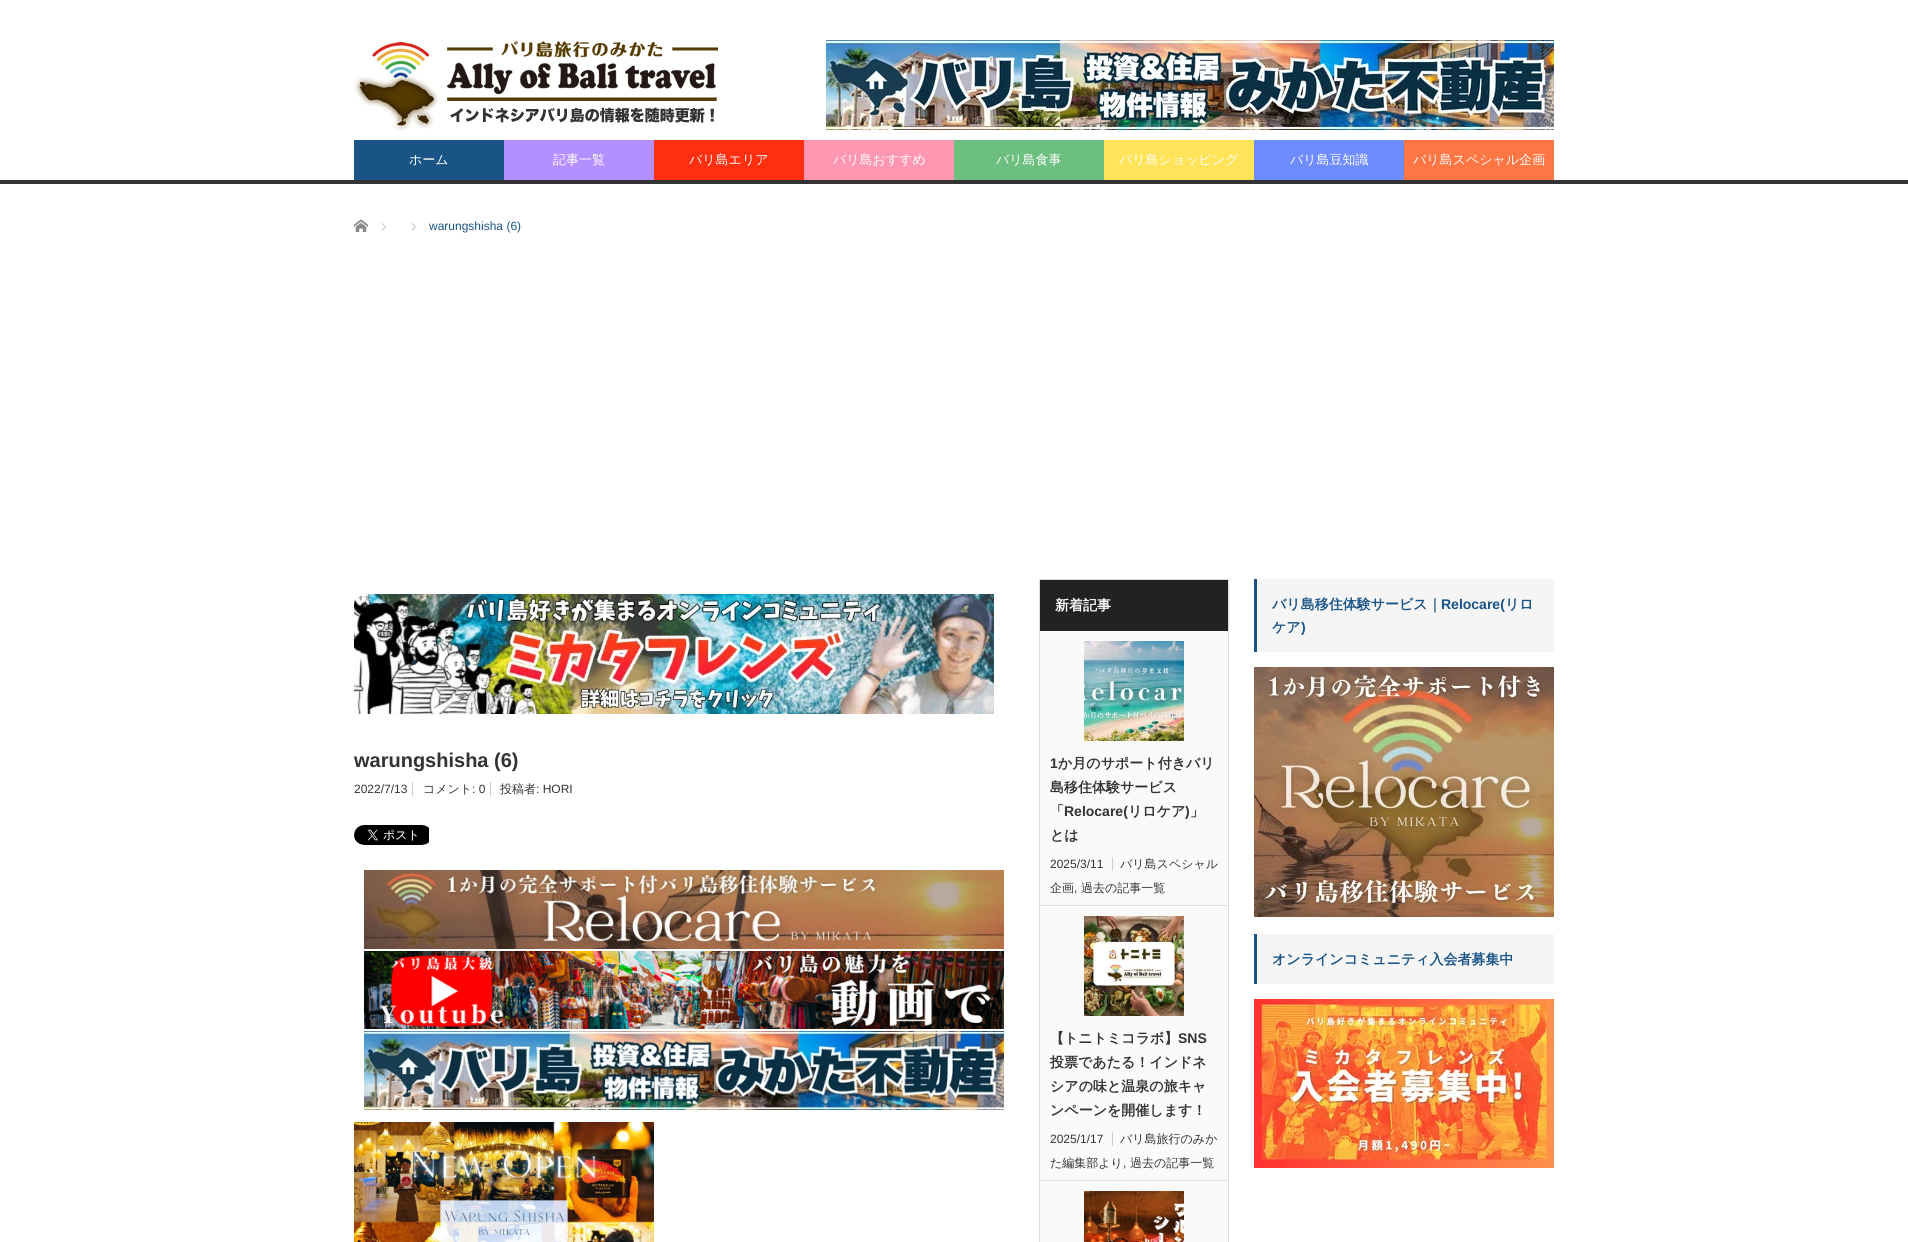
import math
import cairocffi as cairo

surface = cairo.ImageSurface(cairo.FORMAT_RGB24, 1908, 1242)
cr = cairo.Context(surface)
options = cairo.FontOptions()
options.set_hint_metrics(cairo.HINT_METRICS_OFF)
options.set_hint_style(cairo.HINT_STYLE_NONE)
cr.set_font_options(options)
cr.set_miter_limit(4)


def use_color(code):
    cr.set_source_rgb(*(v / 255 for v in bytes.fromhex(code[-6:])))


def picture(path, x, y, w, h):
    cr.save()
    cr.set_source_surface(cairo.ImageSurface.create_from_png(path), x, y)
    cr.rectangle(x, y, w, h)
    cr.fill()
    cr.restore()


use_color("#ffffff")
cr.paint()
use_color("#333333")
cr.rectangle(0, 180, 1908, 4)
cr.fill()
picture("img1.png", 354, 41, 364, 90)
picture("img2.png", 826, 40, 728, 90)
use_color("#1a5487")
cr.rectangle(354, 140, 150, 40)
cr.fill()
cr.select_font_face("WenQuanYi Zen Hei Medium")
cr.set_font_size(13)
use_color("#ffffff")
cr.move_to(409, 164)
cr.show_text("ホーム")
use_color("#b48fff")
cr.rectangle(504, 140, 150, 40)
cr.fill()
use_color("#ffffff")
cr.move_to(553, 164)
cr.show_text("記事一覧")
use_color("#ff2f0f")
cr.rectangle(654, 140, 150, 40)
cr.fill()
use_color("#ffffff")
cr.move_to(689, 164)
cr.show_text("バリ島エリア")
use_color("#ff96b2")
cr.rectangle(804, 140, 150, 40)
cr.fill()
use_color("#ffffff")
cr.move_to(833, 164)
cr.show_text("バリ島おすすめ")
use_color("#6dbf80")
cr.rectangle(954, 140, 150, 40)
cr.fill()
use_color("#ffffff")
cr.move_to(996, 164)
cr.show_text("バリ島食事")
use_color("#ffe359")
cr.rectangle(1104, 140, 150, 40)
cr.fill()
use_color("#ffffff")
cr.move_to(1119, 164)
cr.show_text("バリ島ショッピング")
use_color("#6e8bff")
cr.rectangle(1254, 140, 150, 40)
cr.fill()
use_color("#ffffff")
cr.move_to(1290, 164)
cr.show_text("バリ島豆知識")
use_color("#ff7645")
cr.rectangle(1404, 140, 150, 40)
cr.fill()
use_color("#ffffff")
cr.move_to(1413, 164)
cr.show_text("バリ島スペシャル企画")
picture("img3.png", 354, 219, 14, 13)
picture("img4.png", 381, 223, 5, 8)
picture("img4.png", 411, 223, 5, 8)
cr.select_font_face("Liberation Sans")
cr.set_font_size(12)
use_color("#1a5487")
cr.move_to(429, 230)
cr.show_text("warungshisha (6)")
picture("img5.png", 354, 594, 640, 120)
cr.select_font_face("Liberation Sans", cairo.FONT_SLANT_NORMAL, cairo.FONT_WEIGHT_BOLD)
cr.set_font_size(20)
use_color("#333333")
cr.move_to(354, 767)
cr.show_text("warungshisha (6)")
cr.select_font_face("Liberation Sans")
cr.set_font_size(12)
cr.move_to(354, 793)
cr.show_text("2022/7/13")
use_color("#cccccc")
cr.rectangle(412, 782, 1, 14)
cr.fill()
cr.select_font_face("WenQuanYi Zen Hei Medium")
use_color("#333333")
cr.move_to(423, 793)
cr.show_text("コメント")
cr.select_font_face("Liberation Sans")
cr.move_to(472, 793)
cr.show_text(": 0")
use_color("#cccccc")
cr.rectangle(490, 782, 1, 14)
cr.fill()
cr.select_font_face("WenQuanYi Zen Hei Medium")
use_color("#333333")
cr.move_to(500, 793)
cr.show_text("投稿者")
cr.select_font_face("Liberation Sans")
cr.move_to(536, 793)
cr.show_text(": HORI")
picture("img6.png", 354, 825, 75, 20)
picture("img7.png", 364, 870, 640, 79)
picture("img8.png", 364, 951, 640, 78)
picture("img9.png", 364, 1031, 640, 79)
picture("img10.png", 354, 1122, 300, 120)
use_color("#fafafa")
cr.rectangle(1040, 631, 188, 611)
cr.fill()
cr.rectangle(1039.5, 579.5, 189, 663)
use_color("#dddddd")
cr.set_line_width(1)
cr.stroke()
use_color("#222222")
cr.rectangle(1040, 580, 188, 51)
cr.fill()
cr.select_font_face("WenQuanYi Zen Hei", cairo.FONT_SLANT_NORMAL, cairo.FONT_WEIGHT_BOLD)
cr.set_font_size(14)
use_color("#ffffff")
cr.move_to(1055, 610)
cr.show_text("新着記事")
cr.new_path()
cr.move_to(1040, 905.5)
cr.line_to(1228, 905.5)
use_color("#cccccc")
cr.set_dash([1, 1])
cr.stroke()
picture("img11.png", 1084, 641, 100, 100)
cr.select_font_face("Liberation Sans", cairo.FONT_SLANT_NORMAL, cairo.FONT_WEIGHT_BOLD)
use_color("#333333")
cr.move_to(1050, 768)
cr.show_text("1")
cr.select_font_face("WenQuanYi Zen Hei", cairo.FONT_SLANT_NORMAL, cairo.FONT_WEIGHT_BOLD)
cr.move_to(1058, 768)
cr.show_text("か月のサポート付きバリ")
cr.move_to(1050, 792)
cr.show_text("島移住体験サービス")
cr.move_to(1050, 816)
cr.show_text("「")
cr.select_font_face("Liberation Sans", cairo.FONT_SLANT_NORMAL, cairo.FONT_WEIGHT_BOLD)
cr.move_to(1064, 816)
cr.show_text("Relocare(")
cr.select_font_face("WenQuanYi Zen Hei", cairo.FONT_SLANT_NORMAL, cairo.FONT_WEIGHT_BOLD)
cr.move_to(1128, 816)
cr.show_text("リロケア")
cr.select_font_face("Liberation Sans", cairo.FONT_SLANT_NORMAL, cairo.FONT_WEIGHT_BOLD)
cr.move_to(1185, 816)
cr.show_text(")")
cr.select_font_face("WenQuanYi Zen Hei", cairo.FONT_SLANT_NORMAL, cairo.FONT_WEIGHT_BOLD)
cr.move_to(1190, 816)
cr.show_text("」")
cr.move_to(1050, 840)
cr.show_text("とは")
cr.select_font_face("Liberation Sans")
cr.set_font_size(12)
cr.move_to(1050, 868)
cr.show_text("2025/3/11")
cr.select_font_face("WenQuanYi Zen Hei Medium")
cr.move_to(1120, 868)
cr.show_text("バリ島スペシャル")
use_color("#cccccc")
cr.rectangle(1112, 857, 1, 14)
cr.fill()
use_color("#333333")
cr.move_to(1050, 892)
cr.show_text("企画")
cr.select_font_face("Liberation Sans")
cr.move_to(1074, 892)
cr.show_text(",")
cr.select_font_face("WenQuanYi Zen Hei Medium")
cr.move_to(1081, 892)
cr.show_text("過去の記事一覧")
cr.new_path()
cr.move_to(1040, 1180.5)
cr.line_to(1228, 1180.5)
use_color("#cccccc")
cr.stroke()
picture("img12.png", 1084, 916, 100, 100)
cr.select_font_face("WenQuanYi Zen Hei", cairo.FONT_SLANT_NORMAL, cairo.FONT_WEIGHT_BOLD)
cr.set_font_size(14)
use_color("#333333")
cr.move_to(1050, 1043)
cr.show_text("【トニトミコラボ】")
cr.select_font_face("Liberation Sans", cairo.FONT_SLANT_NORMAL, cairo.FONT_WEIGHT_BOLD)
cr.move_to(1178, 1043)
cr.show_text("SNS")
cr.select_font_face("WenQuanYi Zen Hei", cairo.FONT_SLANT_NORMAL, cairo.FONT_WEIGHT_BOLD)
cr.move_to(1050, 1067)
cr.show_text("投票であたる！インドネ")
cr.move_to(1050, 1091)
cr.show_text("シアの味と温泉の旅キャ")
cr.move_to(1050, 1115)
cr.show_text("ンペーンを開催します！")
cr.select_font_face("Liberation Sans")
cr.set_font_size(12)
cr.move_to(1050, 1143)
cr.show_text("2025/1/17")
cr.select_font_face("WenQuanYi Zen Hei Medium")
cr.move_to(1120, 1143)
cr.show_text("バリ島旅行のみか")
use_color("#cccccc")
cr.rectangle(1112, 1132, 1, 14)
cr.fill()
use_color("#333333")
cr.move_to(1050, 1167)
cr.show_text("た編集部より")
cr.select_font_face("Liberation Sans")
cr.move_to(1123, 1167)
cr.show_text(",")
cr.select_font_face("WenQuanYi Zen Hei Medium")
cr.move_to(1130, 1167)
cr.show_text("過去の記事一覧")
picture("img13.png", 1084, 1191, 100, 51)
use_color("#f5f5f5")
cr.rectangle(1257, 579, 297, 73)
cr.fill()
use_color("#1a5487")
cr.rectangle(1254, 579, 3, 73)
cr.fill()
cr.select_font_face("WenQuanYi Zen Hei", cairo.FONT_SLANT_NORMAL, cairo.FONT_WEIGHT_BOLD)
cr.set_font_size(14)
cr.move_to(1272, 609)
cr.show_text("バリ島移住体験サービス｜")
cr.select_font_face("Liberation Sans", cairo.FONT_SLANT_NORMAL, cairo.FONT_WEIGHT_BOLD)
cr.move_to(1441, 609)
cr.show_text("Relocare(")
cr.select_font_face("WenQuanYi Zen Hei", cairo.FONT_SLANT_NORMAL, cairo.FONT_WEIGHT_BOLD)
cr.move_to(1505, 609)
cr.show_text("リロ")
cr.move_to(1272, 632)
cr.show_text("ケア")
cr.select_font_face("Liberation Sans", cairo.FONT_SLANT_NORMAL, cairo.FONT_WEIGHT_BOLD)
cr.move_to(1301, 632)
cr.show_text(")")
picture("img14.png", 1254, 667, 300, 250)
use_color("#f5f5f5")
cr.rectangle(1257, 934, 297, 50)
cr.fill()
use_color("#1a5487")
cr.rectangle(1254, 934, 3, 50)
cr.fill()
cr.select_font_face("WenQuanYi Zen Hei", cairo.FONT_SLANT_NORMAL, cairo.FONT_WEIGHT_BOLD)
cr.move_to(1272, 964)
cr.show_text("オンラインコミュニティ入会者募集中")
picture("img15.png", 1254, 999, 300, 169)
surface.write_to_png("result.png")
